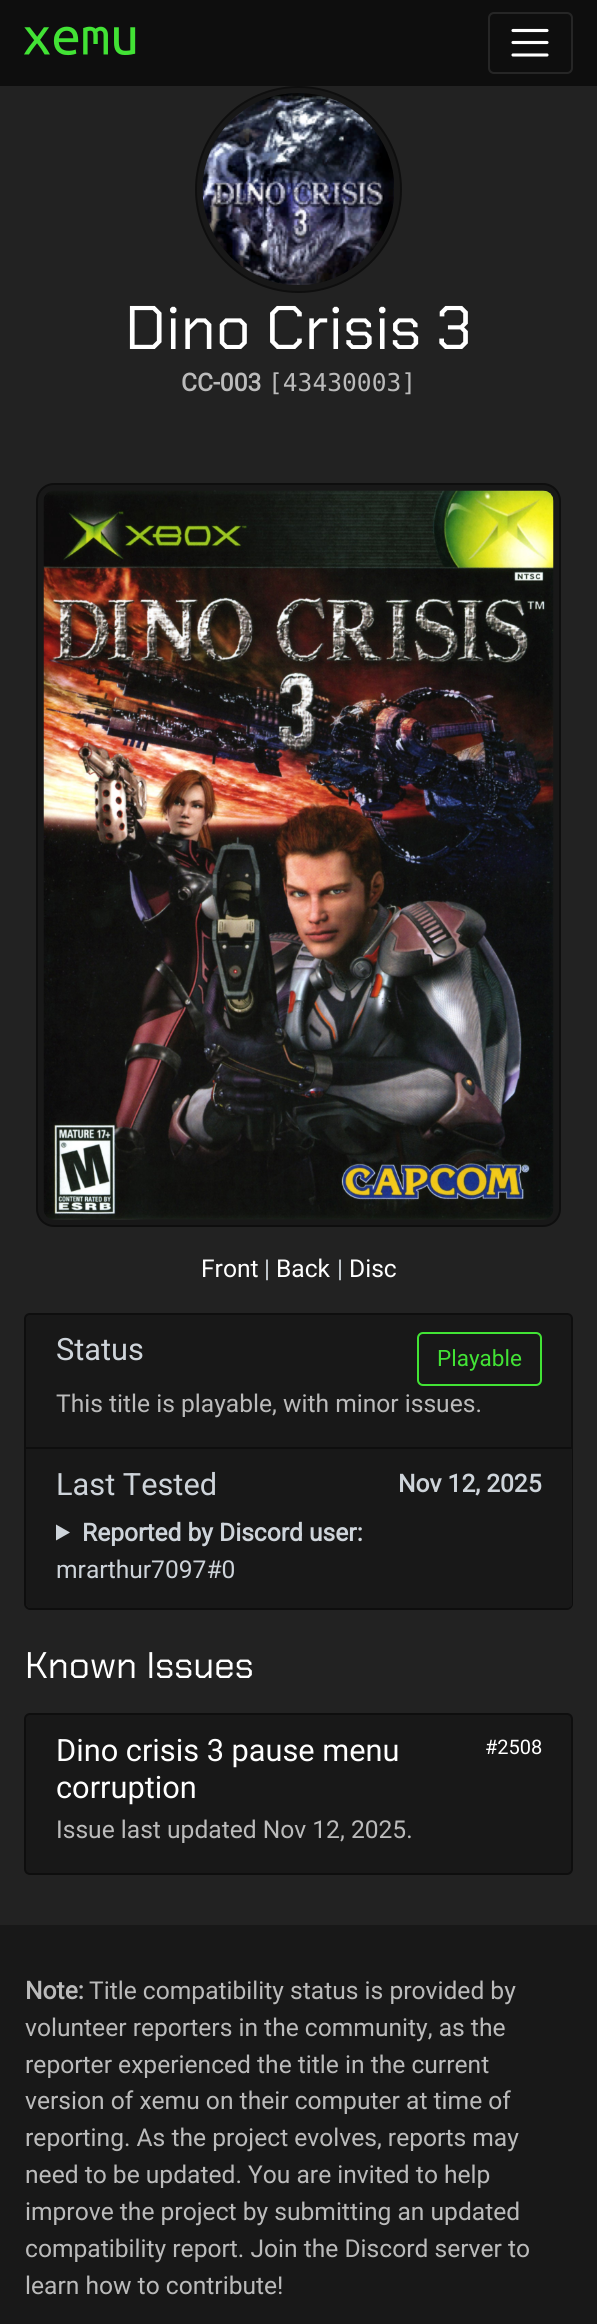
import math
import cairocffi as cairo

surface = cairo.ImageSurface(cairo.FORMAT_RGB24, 597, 2324)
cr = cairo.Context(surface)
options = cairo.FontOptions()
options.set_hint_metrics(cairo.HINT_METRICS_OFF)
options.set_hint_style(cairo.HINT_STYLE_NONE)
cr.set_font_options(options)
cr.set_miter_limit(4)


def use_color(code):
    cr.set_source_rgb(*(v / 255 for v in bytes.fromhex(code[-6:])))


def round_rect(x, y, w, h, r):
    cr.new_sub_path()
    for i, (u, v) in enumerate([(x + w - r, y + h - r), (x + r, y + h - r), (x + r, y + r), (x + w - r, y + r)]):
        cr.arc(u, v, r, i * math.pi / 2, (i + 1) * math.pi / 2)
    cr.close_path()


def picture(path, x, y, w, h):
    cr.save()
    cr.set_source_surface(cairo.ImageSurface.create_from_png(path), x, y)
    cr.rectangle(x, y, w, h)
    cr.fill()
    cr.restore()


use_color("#181818")
cr.paint()
use_color("#0e0e0e")
cr.rectangle(0, 0, 597, 86)
cr.fill()
picture("img1.png", 24, 26, 112, 30)
round_rect(489, 13, 83, 60, 5)
use_color("#262626")
cr.stroke()
cr.new_path()
cr.move_to(513, 30.5)
cr.line_to(547, 30.5)
cr.move_to(513, 42.5)
cr.line_to(547, 42.5)
cr.move_to(513, 55)
cr.line_to(547, 55)
use_color("#ffffff")
cr.set_line_width(3.1)
cr.set_line_cap(cairo.LINE_CAP_ROUND)
cr.stroke()
use_color("#222222")
cr.rectangle(0, 86, 597, 1839)
cr.fill()
use_color("#181818")
cr.arc(298.5, 189.5, 102.5, 0, 2 * math.pi)
cr.fill_preserve()
use_color("#0e0e0e")
cr.set_line_width(2)
cr.set_line_cap(cairo.LINE_CAP_BUTT)
cr.stroke()
picture("img2.png", 202, 93, 192, 192)
cr.select_font_face("Chakra Petch")
cr.set_font_size(61.5)
use_color("#ffffff")
cr.move_to(125, 349)
cr.show_text("Dino Crisis 3")
cr.select_font_face("Roboto", cairo.FONT_SLANT_NORMAL, cairo.FONT_WEIGHT_BOLD)
cr.set_font_size(24.6)
use_color("#bbbbbb")
cr.move_to(181, 391)
cr.show_text("CC-003")
cr.select_font_face("DejaVu Sans Mono")
cr.move_to(268, 391)
cr.show_text("[43430003]")
use_color("#181818")
round_rect(37, 484, 523, 742, 17)
cr.fill_preserve()
use_color("#0e0e0e")
cr.stroke()
picture("img3.png", 43, 490, 511, 730)
cr.select_font_face("Roboto")
use_color("#ffffff")
cr.move_to(201, 1277)
cr.show_text("Front")
use_color("#ced4da")
cr.move_to(264, 1277)
cr.show_text("|")
use_color("#ffffff")
cr.move_to(276, 1277)
cr.show_text("Back")
use_color("#ced4da")
cr.move_to(337, 1277)
cr.show_text("|")
use_color("#ffffff")
cr.move_to(349, 1277)
cr.show_text("Disc")
use_color("#181818")
cr.new_path()
cr.move_to(30, 1314)
cr.line_to(567, 1314)
cr.curve_to(570, 1314, 572, 1316, 572, 1319)
cr.line_to(572, 1448)
cr.line_to(25, 1448)
cr.line_to(25, 1319)
cr.curve_to(25, 1316, 27, 1314, 30, 1314)
cr.close_path()
cr.fill_preserve()
use_color("#0e0e0e")
cr.stroke()
cr.set_font_size(30.75)
use_color("#ced4da")
cr.move_to(56, 1360)
cr.show_text("Status")
round_rect(418, 1333, 123, 52, 5)
use_color("#42e335")
cr.stroke()
cr.set_font_size(22.5)
cr.move_to(437, 1366)
cr.show_text("Playable")
cr.set_font_size(24.6)
use_color("#bbbbbb")
cr.move_to(56, 1412)
cr.show_text("This title is playable, with minor issues.")
use_color("#181818")
cr.new_path()
cr.move_to(26, 1449)
cr.line_to(572, 1449)
cr.line_to(572, 1603)
cr.curve_to(572, 1606, 570, 1608, 567, 1608)
cr.line_to(31, 1608)
cr.curve_to(28, 1608, 26, 1606, 26, 1603)
cr.close_path()
cr.fill()
use_color("#0e0e0e")
cr.set_fill_rule(cairo.FILL_RULE_EVEN_ODD)
cr.new_path()
cr.move_to(24, 1449)
cr.line_to(573, 1449)
cr.line_to(573, 1604)
cr.curve_to(573, 1607, 570, 1610, 567, 1610)
cr.line_to(30, 1610)
cr.curve_to(27, 1610, 24, 1607, 24, 1604)
cr.close_path()
cr.move_to(26, 1449)
cr.line_to(572, 1449)
cr.line_to(572, 1604)
cr.curve_to(572, 1606, 569, 1608, 567, 1608)
cr.line_to(30, 1608)
cr.curve_to(28, 1608, 26, 1606, 26, 1604)
cr.close_path()
cr.fill()
cr.set_font_size(30.75)
use_color("#ced4da")
cr.move_to(56, 1495)
cr.show_text("Last Tested")
cr.select_font_face("Roboto", cairo.FONT_SLANT_NORMAL, cairo.FONT_WEIGHT_BOLD)
cr.set_font_size(24.6)
cr.move_to(398, 1492)
cr.show_text("Nov 12, 2025")
cr.set_fill_rule(cairo.FILL_RULE_WINDING)
cr.new_path()
cr.move_to(56, 1524.5)
cr.line_to(70, 1532.5)
cr.line_to(56, 1540.5)
cr.close_path()
cr.fill()
cr.move_to(82, 1541)
cr.show_text("Reported by Discord user:")
cr.select_font_face("Roboto")
cr.move_to(56, 1578)
cr.show_text("mrarthur7097#0")
cr.select_font_face("Chakra Petch")
cr.set_font_size(37)
use_color("#ffffff")
cr.move_to(25, 1678)
cr.show_text("Known Issues")
use_color("#181818")
round_rect(25, 1714, 547, 160, 5)
cr.fill_preserve()
use_color("#0e0e0e")
cr.stroke()
cr.select_font_face("Roboto")
cr.set_font_size(30.75)
use_color("#ffffff")
cr.move_to(56, 1761)
cr.show_text("Dino crisis 3 pause menu")
cr.move_to(56, 1798)
cr.show_text("corruption")
cr.set_font_size(20)
cr.move_to(485, 1754)
cr.show_text("#2508")
cr.set_font_size(24.6)
use_color("#bbbbbb")
cr.move_to(56, 1838)
cr.show_text("Issue last updated Nov 12, 2025.")
cr.select_font_face("Roboto", cairo.FONT_SLANT_NORMAL, cairo.FONT_WEIGHT_BOLD)
cr.move_to(25, 1999)
cr.show_text("Note:")
cr.select_font_face("Roboto")
cr.move_to(89, 1999)
cr.show_text("Title compatibility status is provided by")
cr.move_to(25, 2036)
cr.show_text("volunteer reporters in the community, as the")
cr.move_to(25, 2073)
cr.show_text("reporter experienced the title in the current")
cr.move_to(25, 2109)
cr.show_text("version of xemu on their computer at time of")
cr.move_to(25, 2146)
cr.show_text("reporting. As the project evolves, reports may")
cr.move_to(25, 2183)
cr.show_text("need to be updated. You are invited to help")
cr.move_to(25, 2220)
cr.show_text("improve the project by submitting an updated")
cr.move_to(25, 2257)
cr.show_text("compatibility report. Join the Discord server to")
cr.move_to(25, 2294)
cr.show_text("learn how to contribute!")
surface.write_to_png("result.png")
